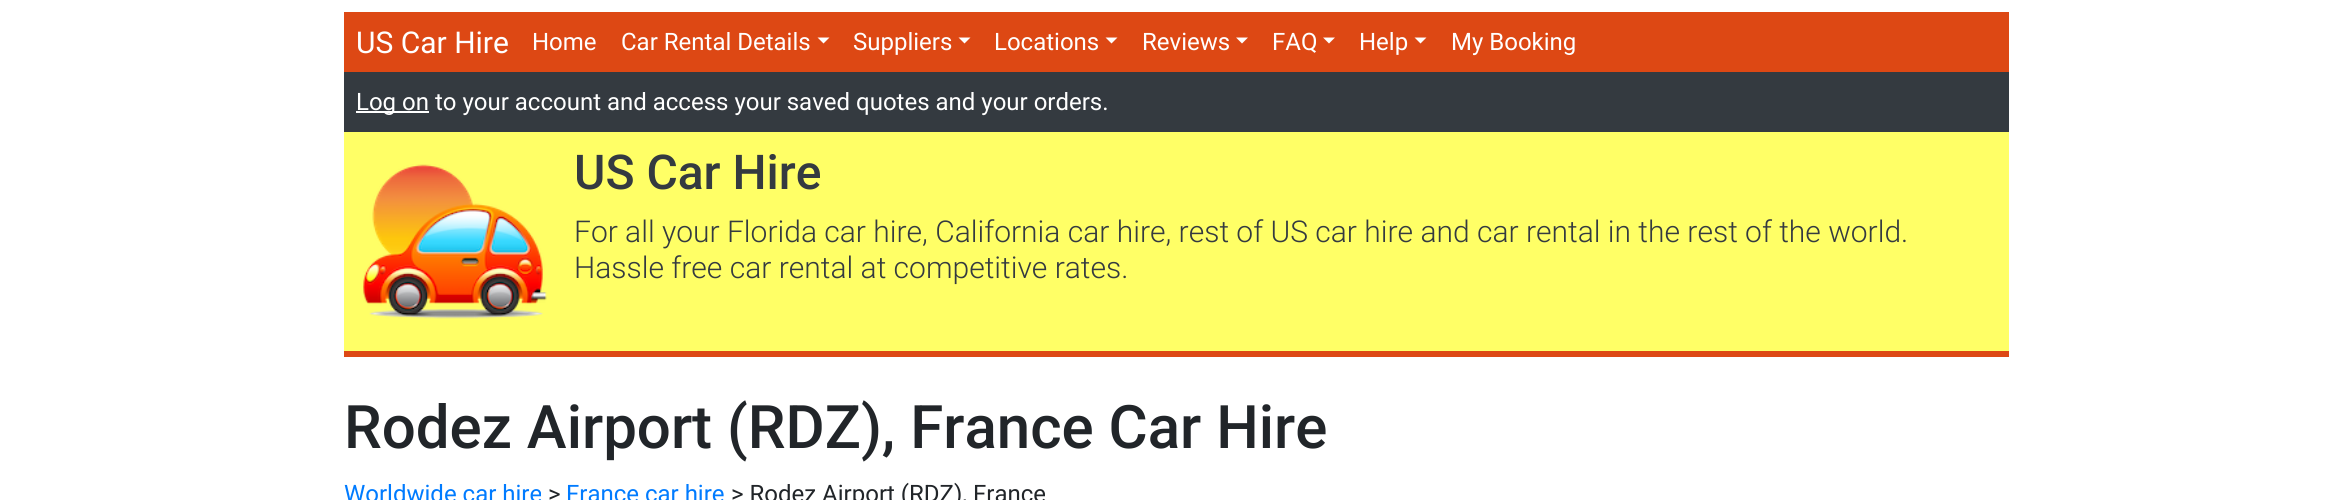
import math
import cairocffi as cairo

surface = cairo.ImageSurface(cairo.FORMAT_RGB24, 2351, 500)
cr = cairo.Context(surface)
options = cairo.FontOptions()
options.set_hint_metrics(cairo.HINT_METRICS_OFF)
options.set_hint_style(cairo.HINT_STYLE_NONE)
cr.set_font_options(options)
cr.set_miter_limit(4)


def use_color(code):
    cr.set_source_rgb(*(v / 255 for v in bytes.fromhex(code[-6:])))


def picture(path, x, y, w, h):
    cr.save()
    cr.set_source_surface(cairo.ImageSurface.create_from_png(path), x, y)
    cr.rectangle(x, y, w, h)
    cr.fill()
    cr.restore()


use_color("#ffffff")
cr.paint()
use_color("#dd4814")
cr.rectangle(344, 12, 1665, 60)
cr.fill()
cr.select_font_face("Roboto")
cr.set_font_size(30)
use_color("#ffffff")
cr.move_to(356, 53)
cr.show_text("US Car Hire")
cr.set_font_size(24)
cr.move_to(532, 50)
cr.show_text("Home")
cr.move_to(621, 50)
cr.show_text("Car Rental Details")
cr.new_path()
cr.move_to(817.5, 37.5)
cr.line_to(829.5, 37.5)
cr.line_to(823.5, 43.5)
cr.close_path()
cr.fill()
cr.move_to(853, 50)
cr.show_text("Suppliers")
cr.new_path()
cr.move_to(958.5, 37.5)
cr.line_to(970.5, 37.5)
cr.line_to(964.5, 43.5)
cr.close_path()
cr.fill()
cr.move_to(994, 50)
cr.show_text("Locations")
cr.new_path()
cr.move_to(1105.5, 37.5)
cr.line_to(1117.5, 37.5)
cr.line_to(1111.5, 43.5)
cr.close_path()
cr.fill()
cr.move_to(1142, 50)
cr.show_text("Reviews")
cr.new_path()
cr.move_to(1236, 37.5)
cr.line_to(1248, 37.5)
cr.line_to(1242, 43.5)
cr.close_path()
cr.fill()
cr.move_to(1272, 50)
cr.show_text("FAQ")
cr.new_path()
cr.move_to(1323, 37.5)
cr.line_to(1335, 37.5)
cr.line_to(1329, 43.5)
cr.close_path()
cr.fill()
cr.move_to(1359, 50)
cr.show_text("Help")
cr.new_path()
cr.move_to(1414.5, 37.5)
cr.line_to(1426.5, 37.5)
cr.line_to(1420.5, 43.5)
cr.close_path()
cr.fill()
cr.move_to(1451, 50)
cr.show_text("My Booking")
use_color("#343a40")
cr.rectangle(344, 72, 1665, 60)
cr.fill()
use_color("#ffffff")
cr.rectangle(356, 111, 73, 2)
cr.fill()
cr.move_to(356, 110)
cr.show_text("Log on to your account and access your saved quotes and your orders.")
use_color("#ffff66")
cr.rectangle(344, 132, 1665, 219)
cr.fill()
picture("img1.png", 363, 164, 184, 155)
cr.select_font_face("Roboto Medium")
cr.set_font_size(48)
use_color("#343a40")
cr.move_to(574, 189)
cr.show_text("US Car Hire")
cr.select_font_face("Roboto Light")
cr.set_font_size(30)
cr.move_to(574, 242)
cr.show_text("For all your Florida car hire, California car hire, rest of US car hire and car rental in the rest of the world.")
cr.move_to(574, 278)
cr.show_text("Hassle free car rental at competitive rates.")
use_color("#dd4814")
cr.rectangle(344, 351, 1665, 6)
cr.fill()
cr.select_font_face("Roboto Medium")
cr.set_font_size(60)
use_color("#212529")
cr.move_to(344, 448)
cr.show_text("Rodez Airport (RDZ), France Car Hire")
cr.select_font_face("Roboto")
cr.set_font_size(24)
use_color("#007bff")
cr.move_to(344, 502)
cr.show_text("Worldwide car hire")
use_color("#212529")
cr.move_to(548, 502)
cr.show_text(">")
use_color("#007bff")
cr.move_to(566, 502)
cr.show_text("France car hire")
use_color("#212529")
cr.move_to(731, 502)
cr.show_text("> Rodez Airport (RDZ), France")
surface.write_to_png("result.png")
